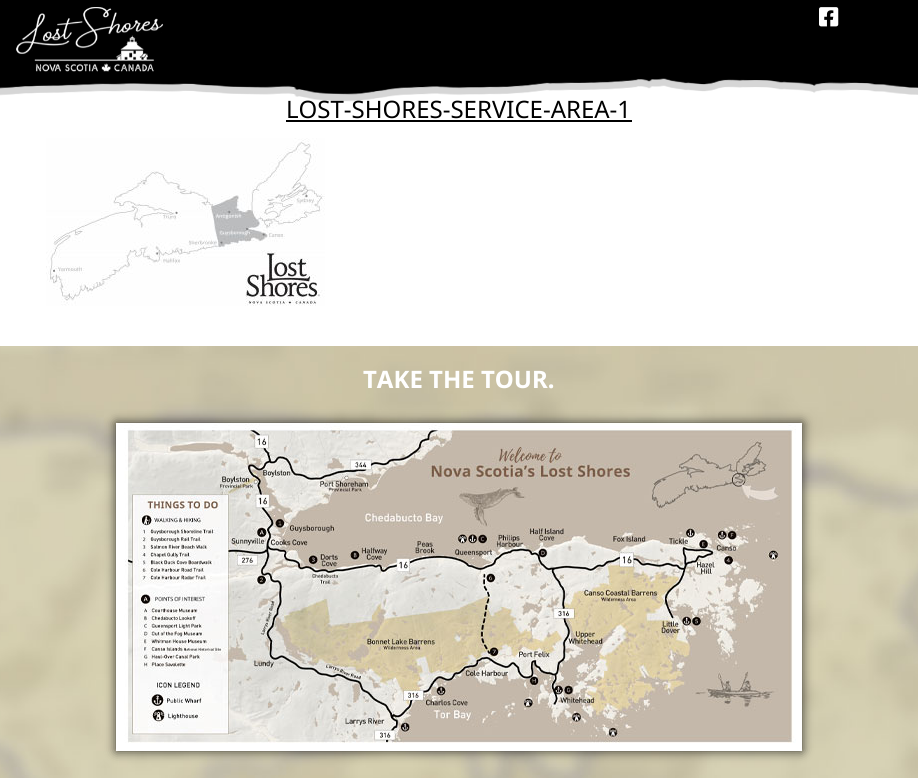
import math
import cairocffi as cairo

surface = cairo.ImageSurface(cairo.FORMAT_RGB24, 918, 778)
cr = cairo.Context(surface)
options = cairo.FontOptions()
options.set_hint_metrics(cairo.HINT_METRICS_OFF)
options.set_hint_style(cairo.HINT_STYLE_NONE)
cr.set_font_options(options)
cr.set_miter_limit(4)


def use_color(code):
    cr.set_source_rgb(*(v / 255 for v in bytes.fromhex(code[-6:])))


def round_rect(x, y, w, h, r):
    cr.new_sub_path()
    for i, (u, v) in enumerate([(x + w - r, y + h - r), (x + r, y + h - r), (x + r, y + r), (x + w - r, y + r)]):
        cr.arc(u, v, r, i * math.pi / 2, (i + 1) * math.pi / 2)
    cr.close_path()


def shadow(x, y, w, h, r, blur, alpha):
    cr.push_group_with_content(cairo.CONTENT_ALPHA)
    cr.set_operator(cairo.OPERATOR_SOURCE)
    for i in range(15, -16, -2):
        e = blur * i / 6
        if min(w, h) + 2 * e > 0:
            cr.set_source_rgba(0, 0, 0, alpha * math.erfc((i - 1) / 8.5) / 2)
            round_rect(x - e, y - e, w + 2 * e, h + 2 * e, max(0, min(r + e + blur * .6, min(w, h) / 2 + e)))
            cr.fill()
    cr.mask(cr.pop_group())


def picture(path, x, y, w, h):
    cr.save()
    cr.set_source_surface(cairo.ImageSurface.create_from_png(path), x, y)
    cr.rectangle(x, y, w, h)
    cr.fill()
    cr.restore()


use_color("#ffffff")
cr.paint()
cr.select_font_face("Noto Sans")
cr.set_font_size(24)
use_color("#000000")
cr.move_to(286, 118)
cr.show_text("LOST-SHORES-SERVICE-AREA-1")
picture("img1.png", 0, 0, 918, 102)
picture("img2.png", 16, 7, 148, 65)
picture("img3.png", 819, 7, 20, 20)
cr.rectangle(286, 120, 346, 2)
cr.fill()
picture("img4.png", 46, 138, 279, 168)
picture("img5.png", 0, 346, 918, 432)
cr.select_font_face("Noto Sans", cairo.FONT_SLANT_NORMAL, cairo.FONT_WEIGHT_BOLD)
use_color("#ffffff")
cr.move_to(363, 388)
cr.show_text("TAKE THE TOUR.")
use_color("#000000")
shadow(116, 423, 686, 328, 0, 5.5, 0.75)
picture("img6.png", 116, 423, 686, 328)
surface.write_to_png("result.png")
